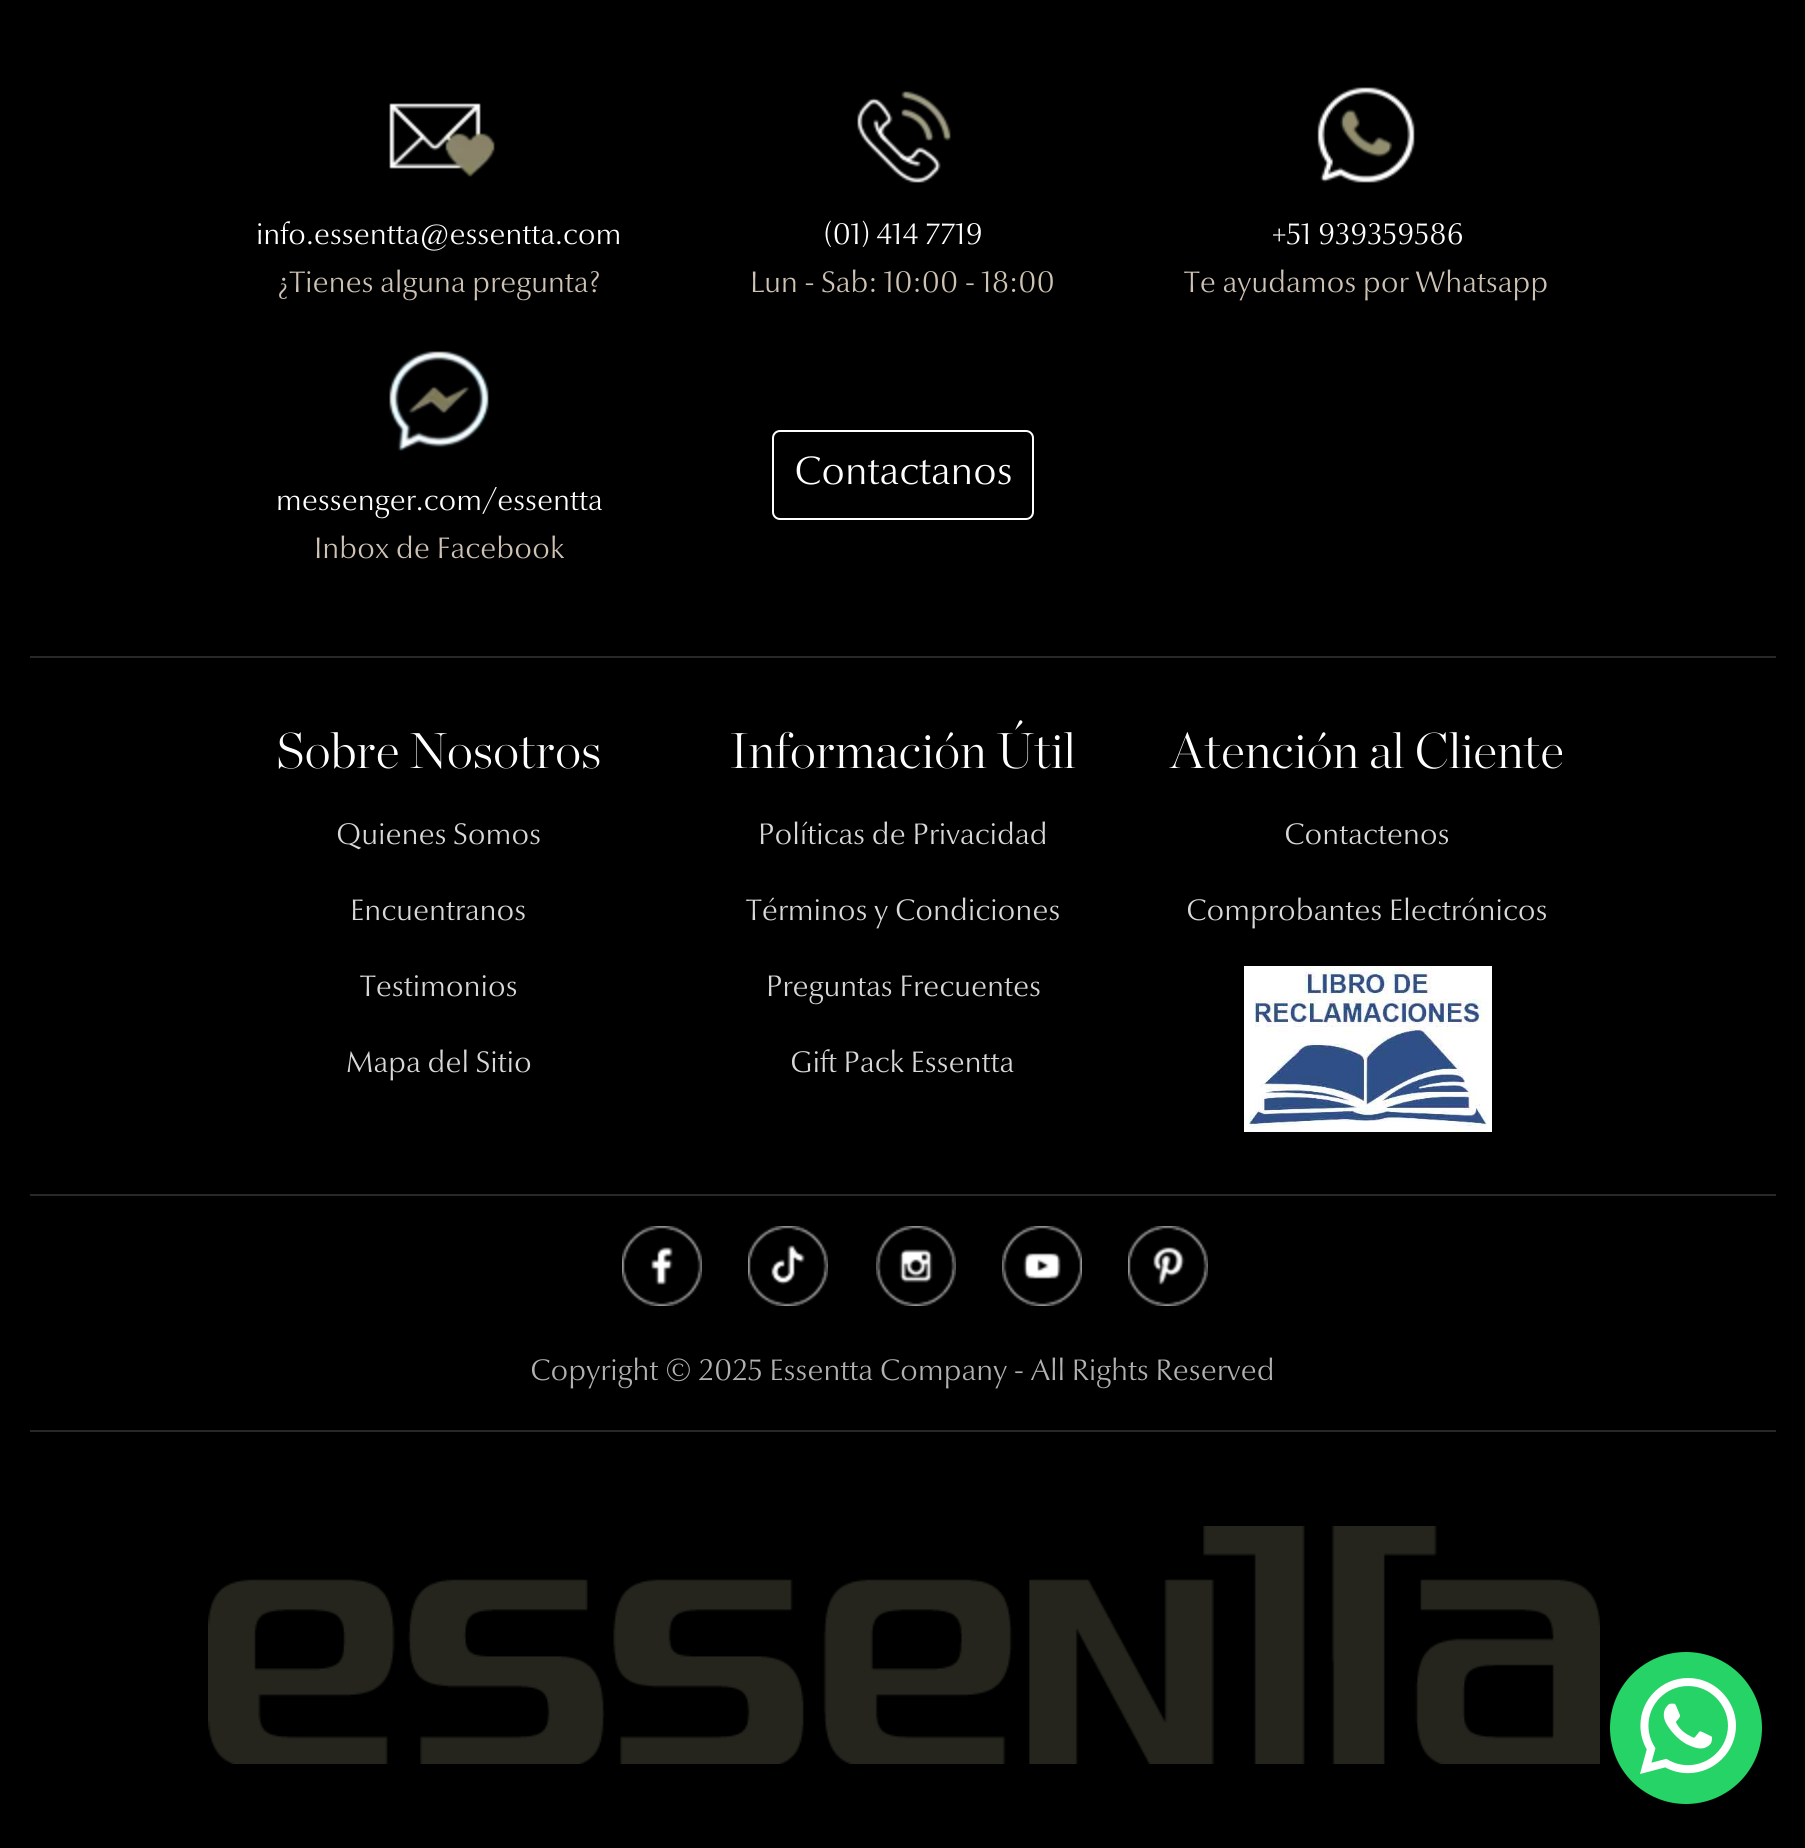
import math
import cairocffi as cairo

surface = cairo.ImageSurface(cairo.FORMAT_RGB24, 1805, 1848)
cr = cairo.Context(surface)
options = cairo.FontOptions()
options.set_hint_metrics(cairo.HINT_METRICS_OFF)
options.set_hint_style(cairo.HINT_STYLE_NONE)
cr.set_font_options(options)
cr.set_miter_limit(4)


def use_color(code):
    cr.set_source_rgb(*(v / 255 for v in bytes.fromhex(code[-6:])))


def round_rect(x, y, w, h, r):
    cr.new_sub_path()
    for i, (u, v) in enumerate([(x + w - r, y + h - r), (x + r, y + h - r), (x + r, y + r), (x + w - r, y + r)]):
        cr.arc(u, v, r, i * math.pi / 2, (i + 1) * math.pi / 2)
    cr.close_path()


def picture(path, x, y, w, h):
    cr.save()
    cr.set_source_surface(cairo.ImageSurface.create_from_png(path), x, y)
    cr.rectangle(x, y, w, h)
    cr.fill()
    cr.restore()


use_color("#000000")
cr.paint()
picture("img1.png", 389, 103, 106, 74)
picture("img2.png", 258, 221, 361, 30)
picture("img3.png", 279, 269, 320, 32)
picture("img4.png", 857, 91, 94, 92)
picture("img5.png", 825, 220, 156, 27)
picture("img6.png", 752, 269, 301, 24)
picture("img7.png", 1317, 87, 98, 96)
picture("img8.png", 1273, 223, 189, 22)
picture("img9.png", 1184, 269, 363, 32)
picture("img10.png", 389, 351, 100, 100)
picture("img11.png", 278, 487, 324, 32)
picture("img12.png", 316, 535, 249, 24)
round_rect(773, 431, 260, 88, 7)
use_color("#ffffff")
cr.stroke()
picture("img13.png", 796, 456, 215, 29)
use_color("#282828")
cr.rectangle(30, 656, 1746, 2)
cr.fill()
cr.select_font_face("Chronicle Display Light")
cr.set_font_size(50)
use_color("#ffffff")
cr.move_to(276, 768)
cr.show_text("Sobre Nosotros")
picture("img14.png", 337, 823, 203, 27)
picture("img15.png", 352, 899, 173, 22)
picture("img16.png", 360, 975, 157, 22)
picture("img17.png", 347, 1049, 184, 32)
cr.move_to(730, 768)
cr.show_text("Información Útil")
picture("img18.png", 760, 821, 285, 24)
picture("img19.png", 746, 897, 313, 32)
picture("img20.png", 768, 975, 272, 30)
picture("img21.png", 791, 1049, 223, 24)
cr.move_to(1170, 768)
cr.show_text("Atención al Cliente")
picture("img22.png", 1285, 823, 163, 22)
picture("img23.png", 1187, 897, 359, 32)
picture("img24.png", 1244, 966, 248, 166)
use_color("#282828")
cr.rectangle(30, 1194, 1746, 2)
cr.fill()
picture("img25.png", 622, 1226, 80, 80)
picture("img26.png", 748, 1226, 80, 80)
picture("img27.png", 876, 1226, 80, 80)
picture("img28.png", 1002, 1226, 80, 80)
picture("img29.png", 1128, 1226, 80, 80)
picture("img30.png", 531, 1357, 742, 32)
cr.rectangle(30, 1430, 1746, 2)
cr.fill()
picture("img31.png", 208, 1526, 1392, 238)
picture("img32.png", 1610, 1652, 152, 152)
surface.write_to_png("result.png")
